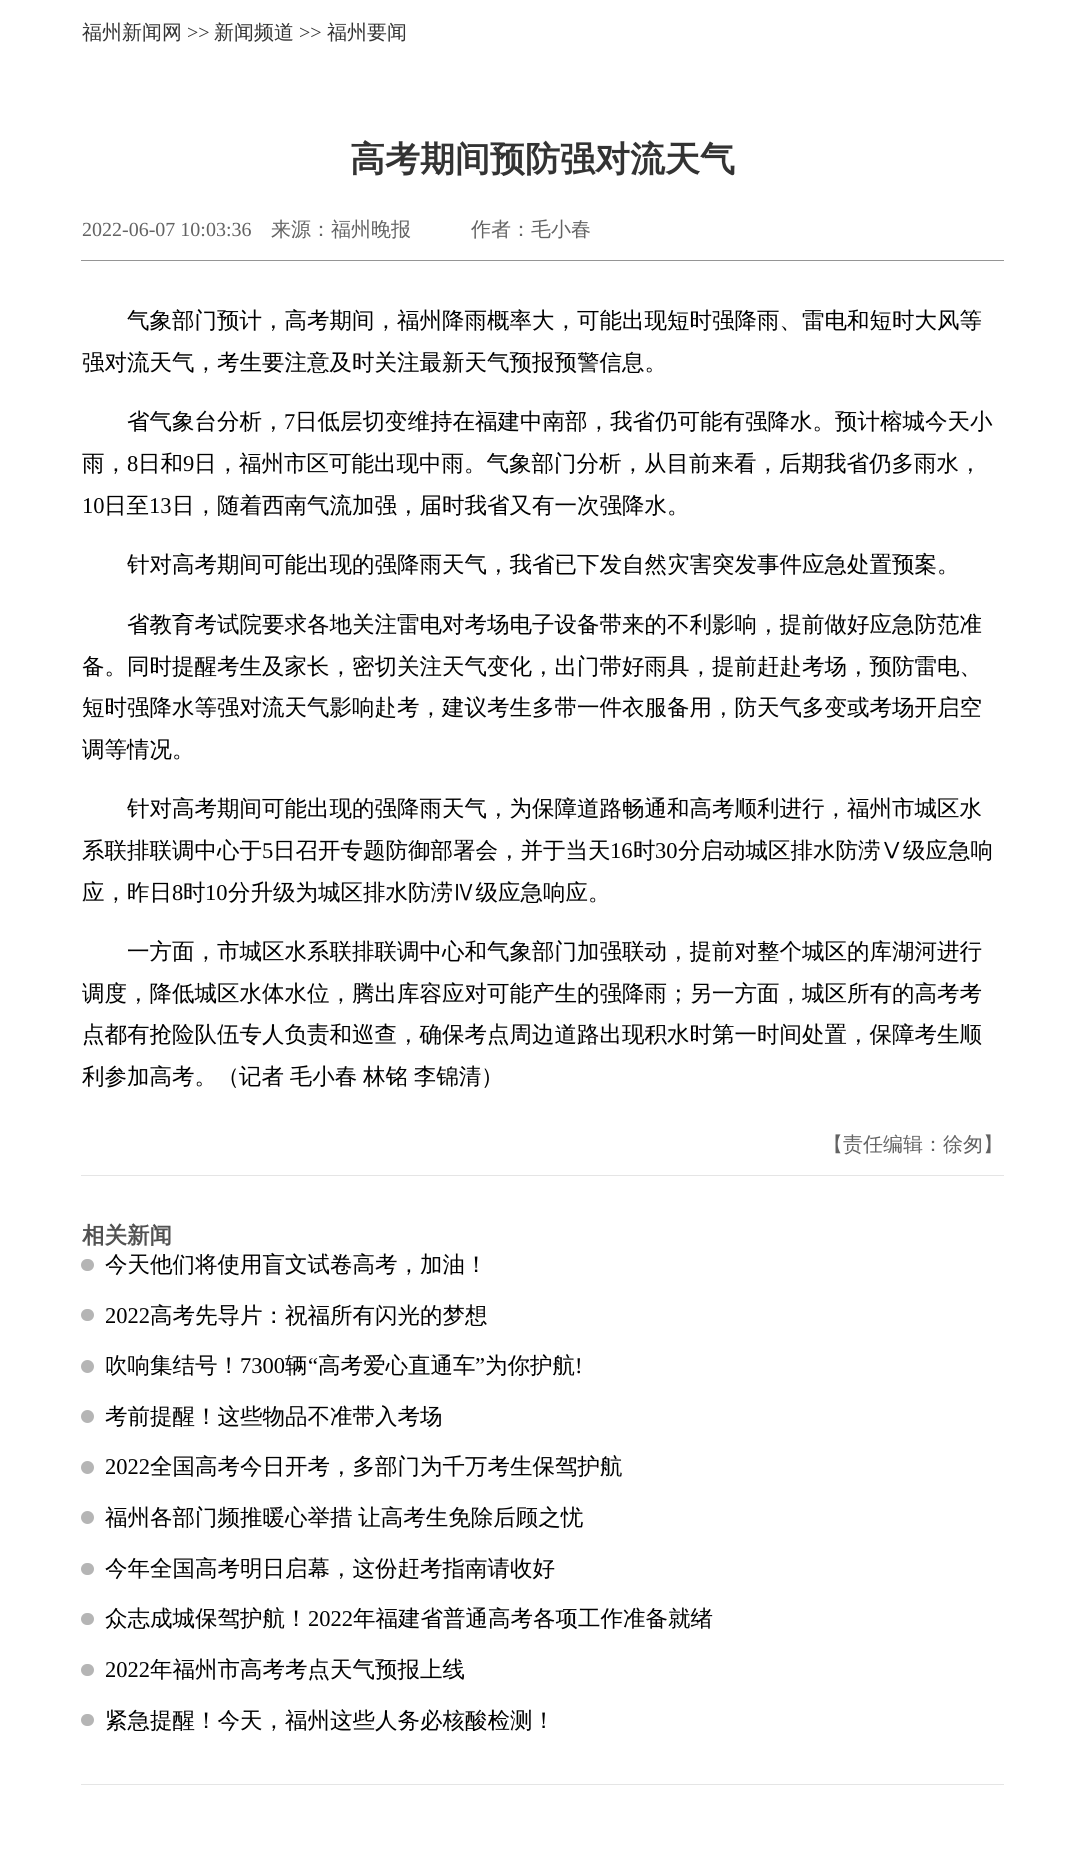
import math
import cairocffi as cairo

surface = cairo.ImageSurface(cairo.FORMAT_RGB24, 1085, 1874)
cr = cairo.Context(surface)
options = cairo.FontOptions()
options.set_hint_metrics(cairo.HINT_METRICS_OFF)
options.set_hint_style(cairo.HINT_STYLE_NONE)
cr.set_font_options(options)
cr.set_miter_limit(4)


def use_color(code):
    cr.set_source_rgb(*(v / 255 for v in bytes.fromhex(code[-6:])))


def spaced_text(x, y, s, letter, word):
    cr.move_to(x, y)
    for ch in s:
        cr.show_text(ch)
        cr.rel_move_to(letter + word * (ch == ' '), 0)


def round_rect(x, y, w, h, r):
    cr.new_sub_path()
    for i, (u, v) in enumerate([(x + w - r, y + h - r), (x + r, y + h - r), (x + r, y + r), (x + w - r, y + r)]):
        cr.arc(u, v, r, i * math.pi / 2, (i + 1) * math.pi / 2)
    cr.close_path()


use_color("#ffffff")
cr.paint()
cr.select_font_face("WenQuanYi Zen Hei Medium")
cr.set_font_size(20)
use_color("#333333")
cr.move_to(82, 39)
cr.show_text("福州新闻网")
cr.select_font_face("Liberation Serif")
cr.move_to(187, 39)
cr.show_text(">>")
cr.select_font_face("WenQuanYi Zen Hei Medium")
cr.move_to(214, 39)
cr.show_text("新闻频道")
cr.select_font_face("Liberation Serif")
cr.move_to(299, 39)
cr.show_text(">>")
cr.select_font_face("WenQuanYi Zen Hei Medium")
cr.move_to(327, 39)
cr.show_text("福州要闻")
cr.select_font_face("WenQuanYi Zen Hei", cairo.FONT_SLANT_NORMAL, cairo.FONT_WEIGHT_BOLD)
cr.set_font_size(35)
cr.move_to(350, 171)
cr.show_text("高考期间预防强对流天气")
use_color("#959595")
cr.rectangle(81, 260, 923, 1)
cr.fill()
cr.select_font_face("Liberation Serif")
cr.set_font_size(20)
use_color("#626262")
cr.move_to(82, 236)
cr.show_text("2022-06-07 10:03:36")
cr.select_font_face("WenQuanYi Zen Hei Medium")
cr.move_to(271, 236)
cr.show_text("来源：福州晚报")
cr.move_to(471, 236)
cr.show_text("作者：毛小春")
cr.set_font_size(22.5)
use_color("#000000")
cr.move_to(127, 328)
cr.show_text("气象部门预计，高考期间，福州降雨概率大，可能出现短时强降雨、雷电和短时大风等")
cr.move_to(82, 370)
cr.show_text("强对流天气，考生要注意及时关注最新天气预报预警信息。")
cr.move_to(127, 429)
cr.show_text("省气象台分析，")
cr.select_font_face("Liberation Serif")
cr.move_to(284, 429)
cr.show_text("7")
cr.select_font_face("WenQuanYi Zen Hei Medium")
cr.move_to(295, 429)
cr.show_text("日低层切变维持在福建中南部，我省仍可能有强降水。预计榕城今天小")
cr.move_to(82, 471)
cr.show_text("雨，")
cr.select_font_face("Liberation Serif")
cr.move_to(127, 471)
cr.show_text("8")
cr.select_font_face("WenQuanYi Zen Hei Medium")
cr.move_to(138, 471)
cr.show_text("日和")
cr.select_font_face("Liberation Serif")
cr.move_to(183, 471)
cr.show_text("9")
cr.select_font_face("WenQuanYi Zen Hei Medium")
cr.move_to(194, 471)
cr.show_text("日，福州市区可能出现中雨。气象部门分析，从目前来看，后期我省仍多雨水，")
cr.select_font_face("Liberation Serif")
cr.move_to(82, 513)
cr.show_text("10")
cr.select_font_face("WenQuanYi Zen Hei Medium")
cr.move_to(104, 513)
cr.show_text("日至")
cr.select_font_face("Liberation Serif")
cr.move_to(149, 513)
cr.show_text("13")
cr.select_font_face("WenQuanYi Zen Hei Medium")
cr.move_to(172, 513)
cr.show_text("日，随着西南气流加强，届时我省又有一次强降水。")
cr.move_to(127, 572)
cr.show_text("针对高考期间可能出现的强降雨天气，我省已下发自然灾害突发事件应急处置预案。")
cr.move_to(127, 632)
cr.show_text("省教育考试院要求各地关注雷电对考场电子设备带来的不利影响，提前做好应急防范准")
cr.move_to(82, 674)
cr.show_text("备。同时提醒考生及家长，密切关注天气变化，出门带好雨具，提前赶赴考场，预防雷电、")
cr.move_to(82, 715)
cr.show_text("短时强降水等强对流天气影响赴考，建议考生多带一件衣服备用，防天气多变或考场开启空")
cr.move_to(82, 757)
cr.show_text("调等情况。")
cr.move_to(127, 816)
cr.show_text("针对高考期间可能出现的强降雨天气，为保障道路畅通和高考顺利进行，福州市城区水")
cr.move_to(82, 858)
cr.show_text("系联排联调中心于")
cr.select_font_face("Liberation Serif")
cr.move_to(262, 858)
cr.show_text("5")
cr.select_font_face("WenQuanYi Zen Hei Medium")
cr.move_to(273, 858)
cr.show_text("日召开专题防御部署会，并于当天")
cr.select_font_face("Liberation Serif")
cr.move_to(610, 858)
cr.show_text("16")
cr.select_font_face("WenQuanYi Zen Hei Medium")
cr.move_to(633, 858)
cr.show_text("时")
cr.select_font_face("Liberation Serif")
cr.move_to(655, 858)
cr.show_text("30")
cr.select_font_face("WenQuanYi Zen Hei Medium")
cr.move_to(678, 858)
cr.show_text("分启动城区排水防涝Ⅴ级应急响")
cr.move_to(82, 900)
cr.show_text("应，昨日")
cr.select_font_face("Liberation Serif")
cr.move_to(172, 900)
cr.show_text("8")
cr.select_font_face("WenQuanYi Zen Hei Medium")
cr.move_to(183, 900)
cr.show_text("时")
cr.select_font_face("Liberation Serif")
cr.move_to(205, 900)
cr.show_text("10")
cr.select_font_face("WenQuanYi Zen Hei Medium")
cr.move_to(228, 900)
cr.show_text("分升级为城区排水防涝Ⅳ级应急响应。")
cr.move_to(127, 959)
cr.show_text("一方面，市城区水系联排联调中心和气象部门加强联动，提前对整个城区的库湖河进行")
cr.move_to(82, 1001)
cr.show_text("调度，降低城区水体水位，腾出库容应对可能产生的强降雨；另一方面，城区所有的高考考")
cr.move_to(82, 1042)
cr.show_text("点都有抢险队伍专人负责和巡查，确保考点周边道路出现积水时第一时间处置，保障考生顺")
cr.move_to(82, 1084)
cr.show_text("利参加高考。（")
spaced_text(239, 1084, "记者 毛小春 林铭 李锦清", 0, -1)
cr.move_to(481, 1084)
cr.show_text("）")
cr.set_font_size(20)
use_color("#626262")
cr.move_to(823, 1151)
cr.show_text("【责任编辑：徐匆】")
use_color("#e5e5e5")
cr.rectangle(81, 1175, 923, 1)
cr.fill()
cr.rectangle(81, 1784, 923, 1)
cr.fill()
cr.select_font_face("WenQuanYi Zen Hei", cairo.FONT_SLANT_NORMAL, cairo.FONT_WEIGHT_BOLD)
cr.set_font_size(22.5)
use_color("#515151")
cr.move_to(82, 1243)
cr.show_text("相关新闻")
use_color("#b5b5b5")
round_rect(81, 1259, 13, 12, 6)
cr.fill()
cr.select_font_face("WenQuanYi Zen Hei Medium")
use_color("#000000")
cr.move_to(105, 1272)
cr.show_text("今天他们将使用盲文试卷高考，加油！")
use_color("#b5b5b5")
round_rect(81, 1309, 13, 12, 6)
cr.fill()
cr.select_font_face("Liberation Serif")
use_color("#000000")
cr.move_to(105, 1323)
cr.show_text("2022")
cr.select_font_face("WenQuanYi Zen Hei Medium")
cr.move_to(150, 1323)
cr.show_text("高考先导片：祝福所有闪光的梦想")
use_color("#b5b5b5")
cr.new_path()
cr.arc(87.5, 1366.5, 6.5, 0, 2 * math.pi)
cr.fill()
use_color("#000000")
cr.move_to(105, 1373)
cr.show_text("吹响集结号！")
cr.select_font_face("Liberation Serif")
cr.move_to(240, 1373)
cr.show_text("7300")
cr.select_font_face("WenQuanYi Zen Hei Medium")
cr.move_to(285, 1373)
cr.show_text("辆")
cr.select_font_face("Liberation Serif")
cr.move_to(308, 1373)
cr.show_text("“")
cr.select_font_face("WenQuanYi Zen Hei Medium")
cr.move_to(318, 1373)
cr.show_text("高考爱心直通车")
cr.select_font_face("Liberation Serif")
cr.move_to(475, 1373)
cr.show_text("”")
cr.select_font_face("WenQuanYi Zen Hei Medium")
cr.move_to(485, 1373)
cr.show_text("为你护航")
cr.select_font_face("Liberation Serif")
cr.move_to(575, 1373)
cr.show_text("!")
use_color("#b5b5b5")
cr.new_path()
cr.arc(87.5, 1416.5, 6.5, 0, 2 * math.pi)
cr.fill()
cr.select_font_face("WenQuanYi Zen Hei Medium")
use_color("#000000")
cr.move_to(105, 1424)
cr.show_text("考前提醒！这些物品不准带入考场")
use_color("#b5b5b5")
cr.new_path()
cr.arc(87.5, 1467.5, 6.5, 0, 2 * math.pi)
cr.fill()
cr.select_font_face("Liberation Serif")
use_color("#000000")
cr.move_to(105, 1474)
cr.show_text("2022")
cr.select_font_face("WenQuanYi Zen Hei Medium")
cr.move_to(150, 1474)
cr.show_text("全国高考今日开考，多部门为千万考生保驾护航")
use_color("#b5b5b5")
cr.new_path()
cr.arc(87.5, 1517.5, 6.5, 0, 2 * math.pi)
cr.fill()
use_color("#000000")
spaced_text(105, 1525, "福州各部门频推暖心举措 让高考生免除后顾之忧", 0, -1)
use_color("#b5b5b5")
round_rect(81, 1563, 13, 12, 6)
cr.fill()
use_color("#000000")
cr.move_to(105, 1576)
cr.show_text("今年全国高考明日启幕，这份赶考指南请收好")
use_color("#b5b5b5")
round_rect(81, 1613, 13, 12, 6)
cr.fill()
use_color("#000000")
cr.move_to(105, 1626)
cr.show_text("众志成城保驾护航！")
cr.select_font_face("Liberation Serif")
cr.move_to(308, 1626)
cr.show_text("2022")
cr.select_font_face("WenQuanYi Zen Hei Medium")
cr.move_to(353, 1626)
cr.show_text("年福建省普通高考各项工作准备就绪")
use_color("#b5b5b5")
round_rect(81, 1664, 13, 12, 6)
cr.fill()
cr.select_font_face("Liberation Serif")
use_color("#000000")
cr.move_to(105, 1677)
cr.show_text("2022")
cr.select_font_face("WenQuanYi Zen Hei Medium")
cr.move_to(150, 1677)
cr.show_text("年福州市高考考点天气预报上线")
use_color("#b5b5b5")
round_rect(81, 1714, 13, 12, 6)
cr.fill()
use_color("#000000")
cr.move_to(105, 1728)
cr.show_text("紧急提醒！今天，福州这些人务必核酸检测！")
surface.write_to_png("result.png")
